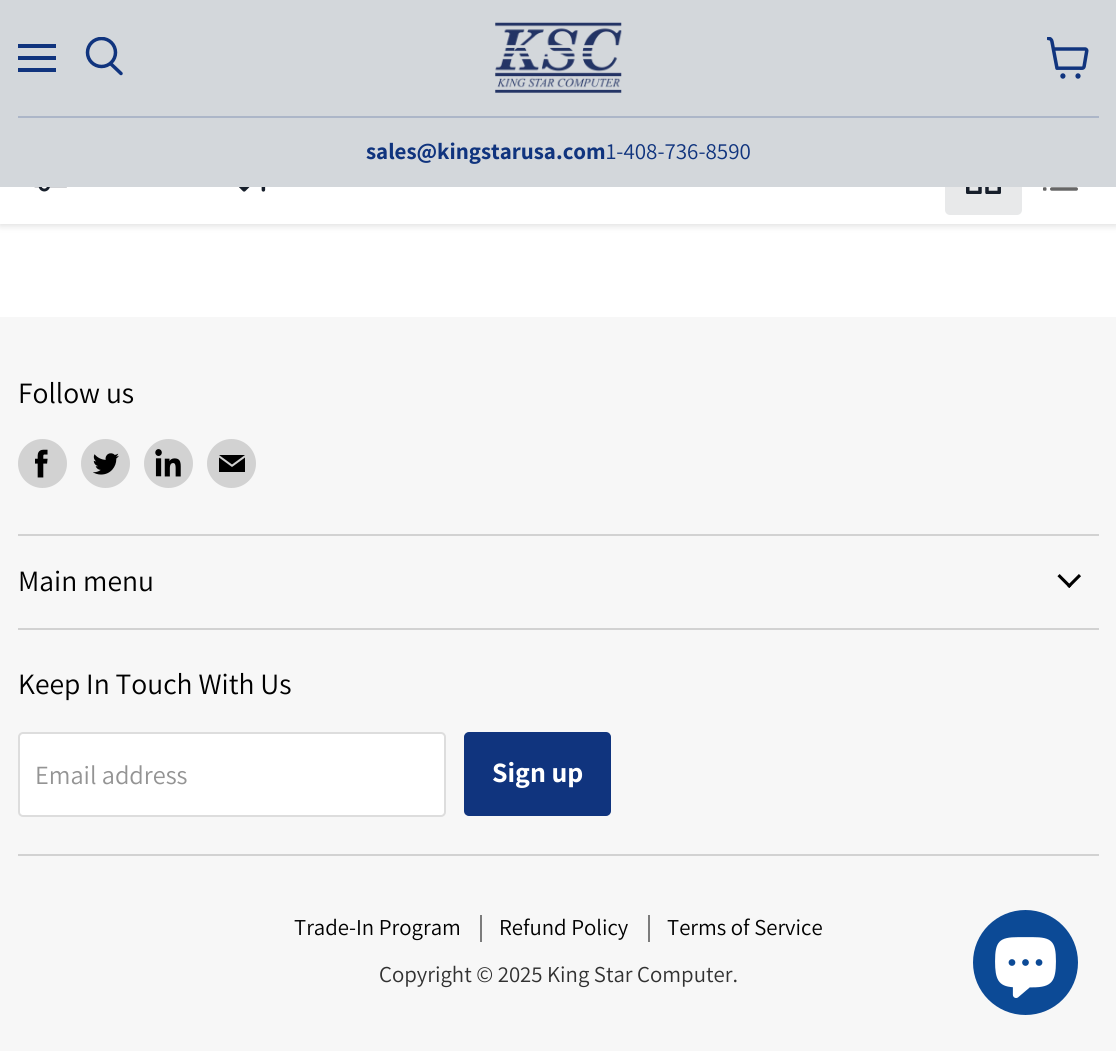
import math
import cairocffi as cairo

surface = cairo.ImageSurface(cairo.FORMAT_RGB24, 1116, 1051)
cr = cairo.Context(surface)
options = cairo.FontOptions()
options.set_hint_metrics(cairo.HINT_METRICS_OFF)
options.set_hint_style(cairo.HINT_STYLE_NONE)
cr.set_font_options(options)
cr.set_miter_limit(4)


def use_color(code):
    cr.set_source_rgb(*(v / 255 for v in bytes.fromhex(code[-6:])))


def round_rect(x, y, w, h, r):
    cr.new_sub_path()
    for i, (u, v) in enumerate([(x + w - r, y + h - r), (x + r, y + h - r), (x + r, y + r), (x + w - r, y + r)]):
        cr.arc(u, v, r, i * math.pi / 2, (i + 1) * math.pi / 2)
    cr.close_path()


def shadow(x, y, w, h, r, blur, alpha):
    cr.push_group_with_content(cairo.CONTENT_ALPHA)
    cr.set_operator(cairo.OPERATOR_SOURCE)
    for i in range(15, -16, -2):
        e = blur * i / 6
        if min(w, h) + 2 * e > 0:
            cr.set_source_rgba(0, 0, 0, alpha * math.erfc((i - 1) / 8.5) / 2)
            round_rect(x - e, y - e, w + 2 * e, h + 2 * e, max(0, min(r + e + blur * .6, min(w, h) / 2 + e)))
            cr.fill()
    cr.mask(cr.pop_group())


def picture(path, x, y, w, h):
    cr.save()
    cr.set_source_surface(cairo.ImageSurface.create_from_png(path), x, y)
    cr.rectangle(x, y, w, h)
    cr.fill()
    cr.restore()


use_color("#ffffff")
cr.paint()
use_color("#808080")
shadow(0, 131, 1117, 95, 0, 3.5, 0.25)
use_color("#ffffff")
cr.rectangle(0, 187, 1116, 37)
cr.fill()
picture("img1.png", 34, 187, 33, 5)
picture("img2.png", 238, 187, 28, 5)
use_color("#e8e9ea")
round_rect(945, 138, 77, 77, 5)
cr.fill()
picture("img3.png", 966, 187, 35, 7)
picture("img4.png", 1043, 187, 35, 4)
use_color("#d3d7db")
cr.rectangle(0, 0, 1116, 187)
cr.fill()
use_color("#10347e")
cr.rectangle(18, 44, 38, 4)
cr.fill()
cr.rectangle(18, 56, 38, 4)
cr.fill()
cr.rectangle(18, 68, 38, 4)
cr.fill()
cr.new_path()
cr.move_to(121, 73.5)
cr.line_to(111, 64)
cr.set_line_width(3.5)
cr.set_line_cap(cairo.LINE_CAP_ROUND)
cr.stroke()
cr.save()
cr.rectangle(84, 37, 40, 42)
cr.clip()
cr.arc(101.5, 52.5, 14, 0, 2 * math.pi)
cr.set_line_cap(cairo.LINE_CAP_BUTT)
cr.stroke()
cr.restore()
picture("img5.png", 1047, 37, 42, 42)
picture("img6.png", 495, 22, 127, 71)
use_color("#acb6c8")
cr.rectangle(18, 116, 1081, 2)
cr.fill()
cr.select_font_face("Assistant", cairo.FONT_SLANT_NORMAL, cairo.FONT_WEIGHT_BOLD)
cr.set_font_size(23)
use_color("#10347e")
cr.move_to(366, 159)
cr.show_text("sales@kingstarusa.com")
cr.select_font_face("Assistant")
cr.move_to(606, 159)
cr.show_text("1-408-736-8590")
use_color("#f7f7f7")
cr.rectangle(0, 317, 1116, 734)
cr.fill()
use_color("#d2d2d2")
cr.rectangle(18, 534, 1081, 2)
cr.fill()
cr.set_font_size(29.5)
use_color("#000000")
cr.move_to(18, 403)
cr.show_text("Follow us")
use_color("#d2d2d2")
cr.new_path()
cr.arc(42.5, 463.5, 24.5, 0, 2 * math.pi)
cr.fill()
picture("img7.png", 35, 449, 13, 29)
cr.arc(105.5, 463.5, 24.5, 0, 2 * math.pi)
cr.fill()
picture("img8.png", 93, 453, 26, 22)
cr.arc(168.5, 463.5, 24.5, 0, 2 * math.pi)
cr.fill()
picture("img9.png", 155, 449, 26, 28)
cr.arc(231.5, 463.5, 24.5, 0, 2 * math.pi)
cr.fill()
use_color("#000000")
cr.set_fill_rule(cairo.FILL_RULE_EVEN_ODD)
cr.new_path()
cr.move_to(245, 455)
cr.line_to(219, 455)
cr.line_to(232, 464.5)
cr.close_path()
cr.move_to(232, 467)
cr.line_to(219, 457.5)
cr.line_to(219, 472)
cr.line_to(245, 472)
cr.line_to(245, 457.5)
cr.close_path()
cr.fill()
use_color("#d2d2d2")
cr.rectangle(18, 628, 1081, 2)
cr.fill()
use_color("#000000")
cr.move_to(18, 591)
cr.show_text("Main menu")
picture("img10.png", 1057, 574, 24, 14)
use_color("#d2d2d2")
cr.rectangle(18, 854, 1081, 2)
cr.fill()
use_color("#000000")
cr.move_to(18, 694)
cr.show_text("Keep In Touch With Us")
use_color("#ffffff")
round_rect(19, 733, 426, 83, 4)
cr.fill_preserve()
use_color("#dddddd")
cr.set_line_width(2)
cr.set_line_cap(cairo.LINE_CAP_BUTT)
cr.stroke()
cr.set_font_size(26.25)
use_color("#949494")
cr.move_to(35, 784)
cr.show_text("Email address")
use_color("#10347e")
round_rect(465, 733, 145, 82, 4)
cr.fill_preserve()
cr.stroke()
cr.select_font_face("Assistant", cairo.FONT_SLANT_NORMAL, cairo.FONT_WEIGHT_BOLD)
cr.set_font_size(28)
use_color("#ffffff")
cr.move_to(492, 782)
cr.show_text("Sign up")
use_color("#7c7c7c")
cr.rectangle(480, 915, 2, 27)
cr.fill()
cr.select_font_face("Assistant")
cr.set_font_size(22.75)
use_color("#000000")
cr.move_to(294, 935)
cr.show_text("Trade-In Program")
use_color("#7c7c7c")
cr.rectangle(648, 915, 2, 27)
cr.fill()
use_color("#000000")
cr.move_to(499, 935)
cr.show_text("Refund Policy")
cr.move_to(667, 935)
cr.show_text("Terms of Service")
use_color("#313131")
cr.move_to(379, 982)
cr.show_text("Copyright © 2025 King Star Computer.")
use_color("#0c4a96")
cr.new_path()
cr.arc(1025.5, 962.5, 52.5, 0, 2 * math.pi)
cr.fill()
picture("img11.png", 995, 937, 61, 61)
surface.write_to_png("result.png")
